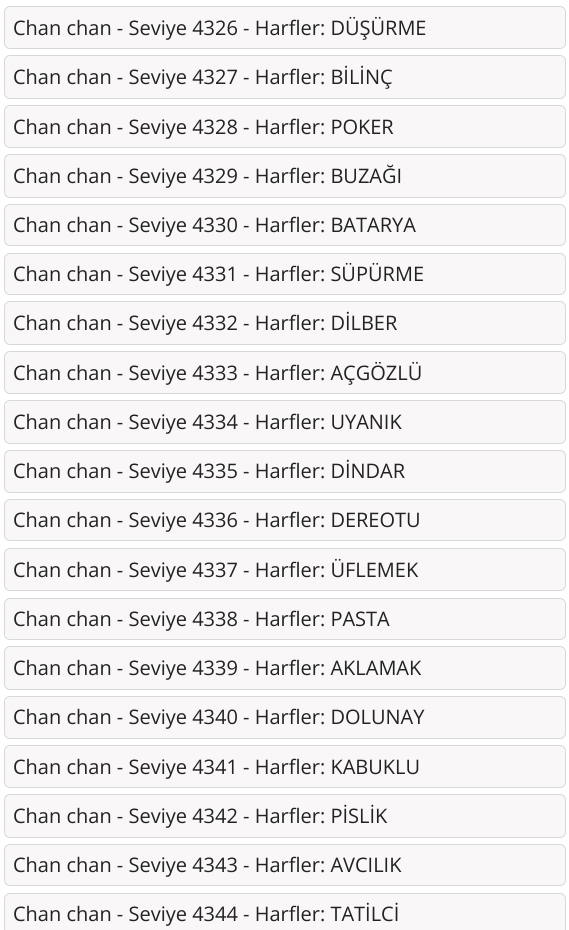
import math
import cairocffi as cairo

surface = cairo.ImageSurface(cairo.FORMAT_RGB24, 569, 930)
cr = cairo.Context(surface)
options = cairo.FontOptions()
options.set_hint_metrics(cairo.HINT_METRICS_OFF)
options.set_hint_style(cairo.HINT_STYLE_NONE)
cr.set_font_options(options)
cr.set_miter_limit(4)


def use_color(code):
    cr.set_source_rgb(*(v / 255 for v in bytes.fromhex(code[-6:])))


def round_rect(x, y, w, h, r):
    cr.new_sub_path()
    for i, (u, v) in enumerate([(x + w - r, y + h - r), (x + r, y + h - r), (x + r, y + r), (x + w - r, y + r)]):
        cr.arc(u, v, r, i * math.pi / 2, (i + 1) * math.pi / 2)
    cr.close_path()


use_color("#ffffff")
cr.paint()
use_color("#f9f7f7")
round_rect(4.5, 6.5, 561, 42, 5.5)
cr.fill_preserve()
use_color("#d8d8d8")
cr.set_line_width(1)
cr.stroke()
cr.select_font_face("Open Sans")
cr.set_font_size(20)
use_color("#222222")
cr.move_to(13, 35)
cr.show_text("Chan chan - Seviye 4326 - Harfler: DÜŞÜRME")
use_color("#f9f7f7")
round_rect(4.5, 55.5, 561, 43, 5.5)
cr.fill_preserve()
use_color("#d8d8d8")
cr.stroke()
use_color("#222222")
cr.move_to(13, 84)
cr.show_text("Chan chan - Seviye 4327 - Harfler: BİLİNÇ")
use_color("#f9f7f7")
round_rect(4.5, 105.5, 561, 42, 5.5)
cr.fill_preserve()
use_color("#d8d8d8")
cr.stroke()
use_color("#222222")
cr.move_to(13, 134)
cr.show_text("Chan chan - Seviye 4328 - Harfler: POKER")
use_color("#f9f7f7")
round_rect(4.5, 154.5, 561, 43, 5.5)
cr.fill_preserve()
use_color("#d8d8d8")
cr.stroke()
use_color("#222222")
cr.move_to(13, 183)
cr.show_text("Chan chan - Seviye 4329 - Harfler: BUZAĞI")
use_color("#f9f7f7")
round_rect(4.5, 204.5, 561, 41, 5.5)
cr.fill_preserve()
use_color("#d8d8d8")
cr.stroke()
use_color("#222222")
cr.move_to(13, 232)
cr.show_text("Chan chan - Seviye 4330 - Harfler: BATARYA")
use_color("#f9f7f7")
round_rect(4.5, 253.5, 561, 41, 5.5)
cr.fill_preserve()
use_color("#d8d8d8")
cr.stroke()
use_color("#222222")
cr.move_to(13, 281)
cr.show_text("Chan chan - Seviye 4331 - Harfler: SÜPÜRME")
use_color("#f9f7f7")
round_rect(4.5, 301.5, 561, 43, 5.5)
cr.fill_preserve()
use_color("#d8d8d8")
cr.stroke()
use_color("#222222")
cr.move_to(13, 330)
cr.show_text("Chan chan - Seviye 4332 - Harfler: DİLBER")
use_color("#f9f7f7")
round_rect(4.5, 351.5, 561, 42, 5.5)
cr.fill_preserve()
use_color("#d8d8d8")
cr.stroke()
use_color("#222222")
cr.move_to(13, 380)
cr.show_text("Chan chan - Seviye 4333 - Harfler: AÇGÖZLÜ")
use_color("#f9f7f7")
round_rect(4.5, 400.5, 561, 43, 5.5)
cr.fill_preserve()
use_color("#d8d8d8")
cr.stroke()
use_color("#222222")
cr.move_to(13, 429)
cr.show_text("Chan chan - Seviye 4334 - Harfler: UYANIK")
use_color("#f9f7f7")
round_rect(4.5, 450.5, 561, 42, 5.5)
cr.fill_preserve()
use_color("#d8d8d8")
cr.stroke()
use_color("#222222")
cr.move_to(13, 478)
cr.show_text("Chan chan - Seviye 4335 - Harfler: DİNDAR")
use_color("#f9f7f7")
round_rect(4.5, 499.5, 561, 41, 5.5)
cr.fill_preserve()
use_color("#d8d8d8")
cr.stroke()
use_color("#222222")
cr.move_to(13, 527)
cr.show_text("Chan chan - Seviye 4336 - Harfler: DEREOTU")
use_color("#f9f7f7")
round_rect(4.5, 548.5, 561, 42, 5.5)
cr.fill_preserve()
use_color("#d8d8d8")
cr.stroke()
use_color("#222222")
cr.move_to(13, 577)
cr.show_text("Chan chan - Seviye 4337 - Harfler: ÜFLEMEK")
use_color("#f9f7f7")
round_rect(4.5, 598.5, 561, 41, 5.5)
cr.fill_preserve()
use_color("#d8d8d8")
cr.stroke()
use_color("#222222")
cr.move_to(13, 626)
cr.show_text("Chan chan - Seviye 4338 - Harfler: PASTA")
use_color("#f9f7f7")
round_rect(4.5, 646.5, 561, 43, 5.5)
cr.fill_preserve()
use_color("#d8d8d8")
cr.stroke()
use_color("#222222")
cr.move_to(13, 675)
cr.show_text("Chan chan - Seviye 4339 - Harfler: AKLAMAK")
use_color("#f9f7f7")
round_rect(4.5, 696.5, 561, 42, 5.5)
cr.fill_preserve()
use_color("#d8d8d8")
cr.stroke()
use_color("#222222")
cr.move_to(13, 724)
cr.show_text("Chan chan - Seviye 4340 - Harfler: DOLUNAY")
use_color("#f9f7f7")
round_rect(4.5, 745.5, 561, 42, 5.5)
cr.fill_preserve()
use_color("#d8d8d8")
cr.stroke()
use_color("#222222")
cr.move_to(13, 774)
cr.show_text("Chan chan - Seviye 4341 - Harfler: KABUKLU")
use_color("#f9f7f7")
round_rect(4.5, 794.5, 561, 43, 5.5)
cr.fill_preserve()
use_color("#d8d8d8")
cr.stroke()
use_color("#222222")
cr.move_to(13, 823)
cr.show_text("Chan chan - Seviye 4342 - Harfler: PİSLİK")
use_color("#f9f7f7")
round_rect(4.5, 844.5, 561, 41, 5.5)
cr.fill_preserve()
use_color("#d8d8d8")
cr.stroke()
use_color("#222222")
cr.move_to(13, 872)
cr.show_text("Chan chan - Seviye 4343 - Harfler: AVCILIK")
use_color("#f9f7f7")
round_rect(4.5, 893.5, 561, 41, 5.5)
cr.fill_preserve()
use_color("#d8d8d8")
cr.stroke()
use_color("#222222")
cr.move_to(13, 921)
cr.show_text("Chan chan - Seviye 4344 - Harfler: TATİLCİ")
surface.write_to_png("result.png")
